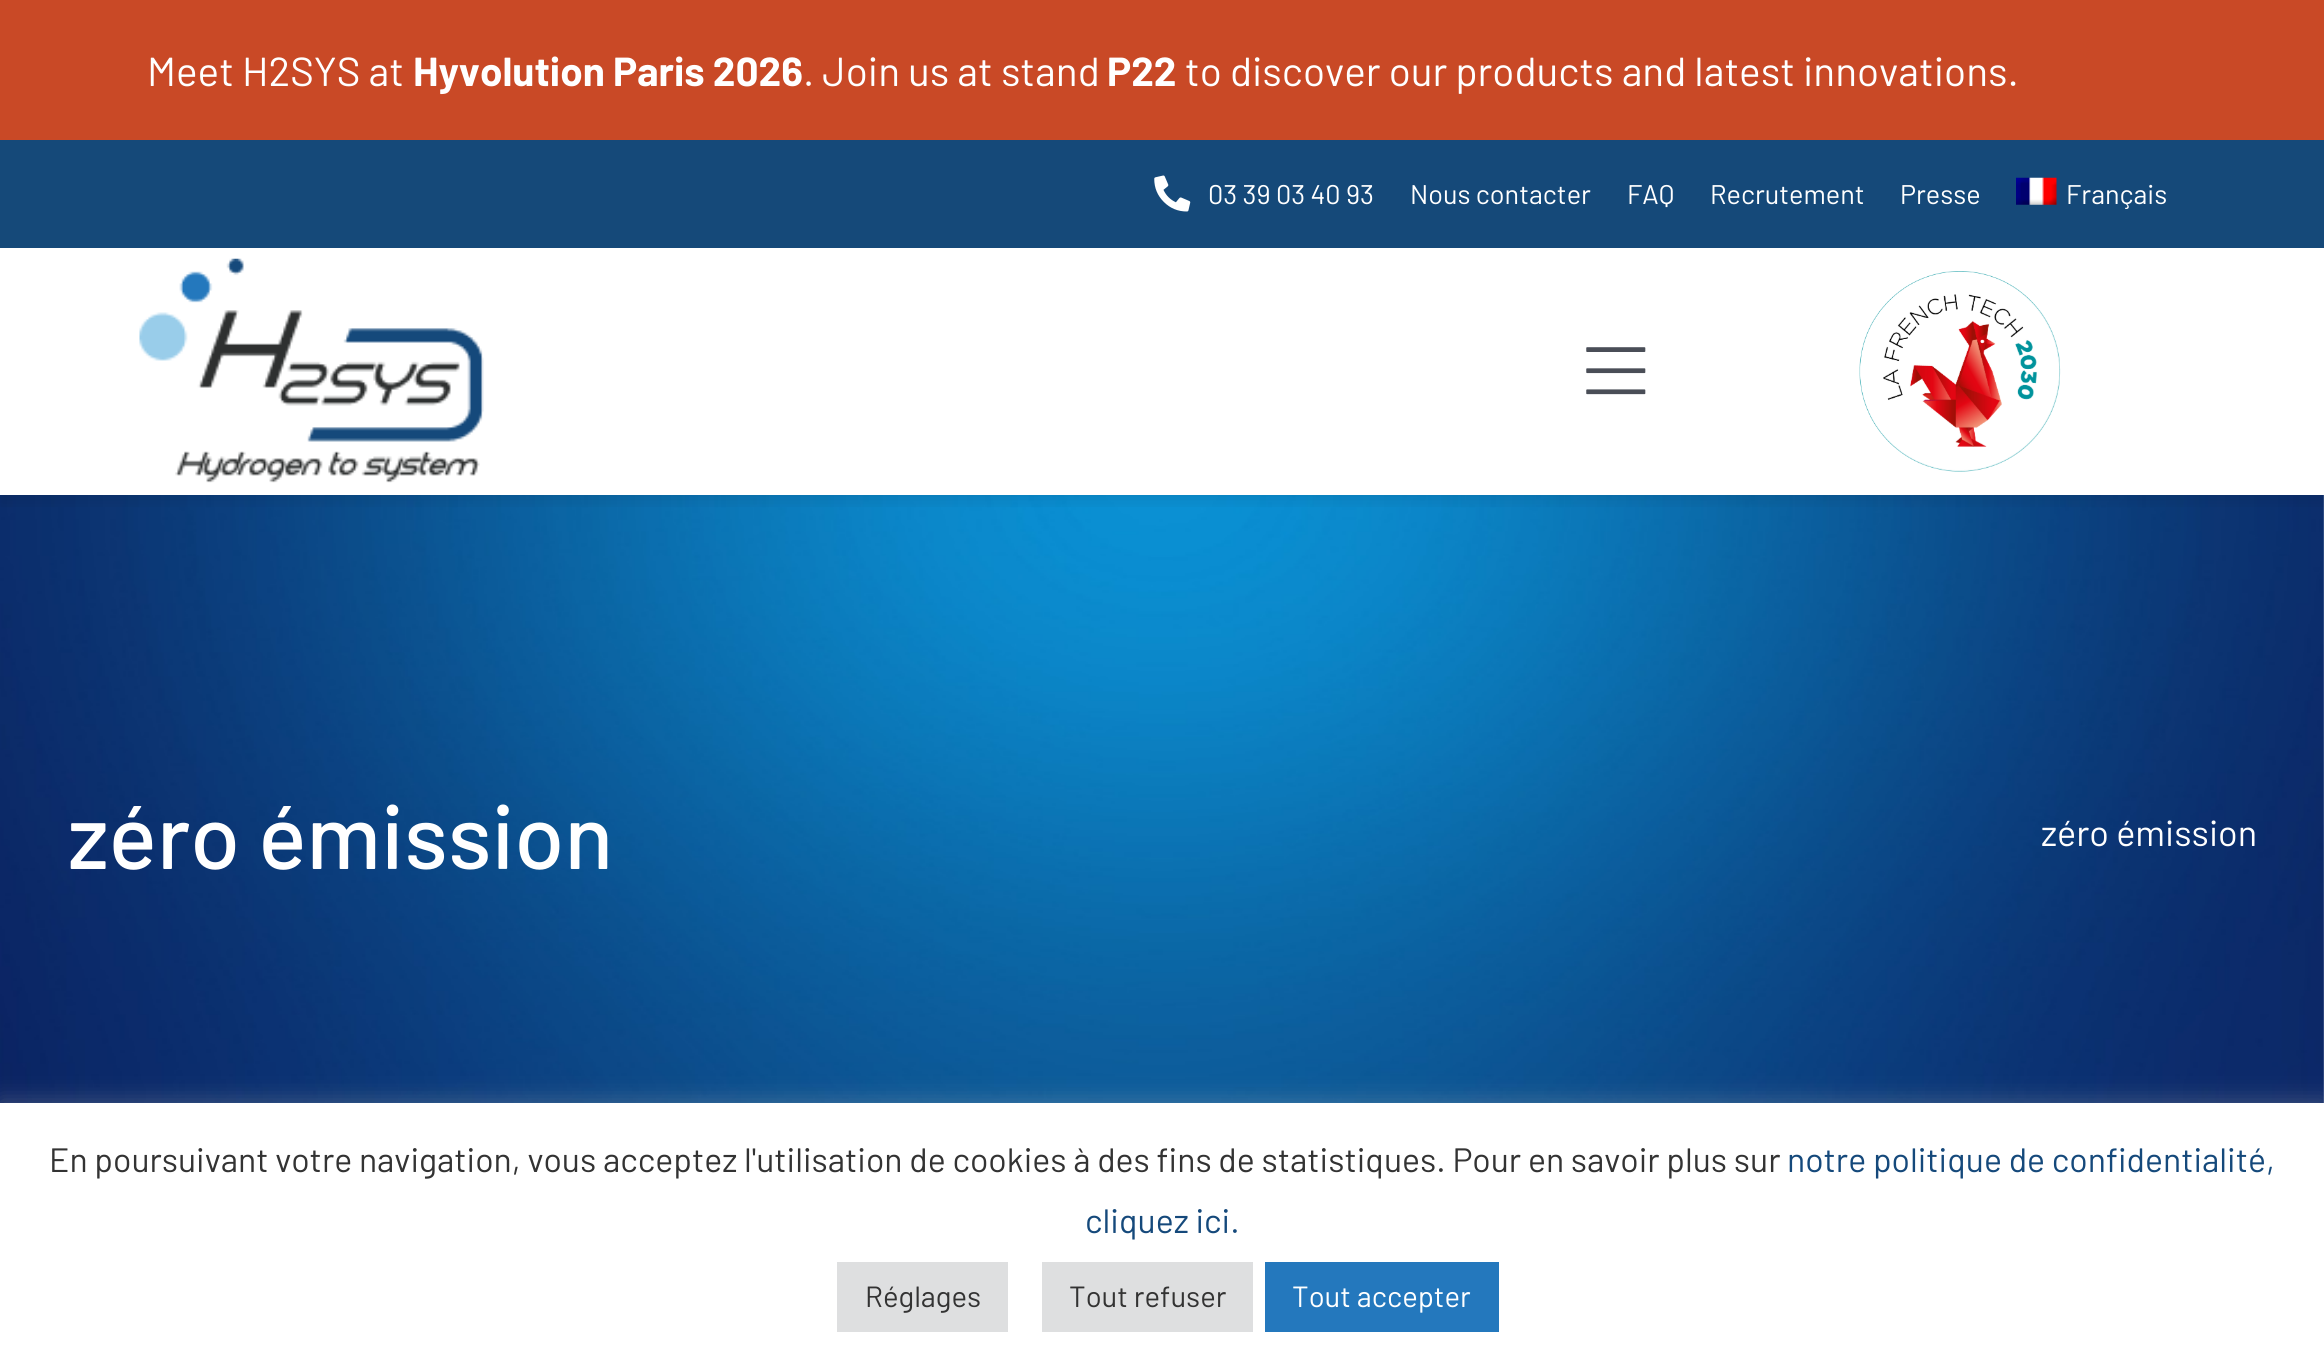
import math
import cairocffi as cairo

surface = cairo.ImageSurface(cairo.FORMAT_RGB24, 2324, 1359)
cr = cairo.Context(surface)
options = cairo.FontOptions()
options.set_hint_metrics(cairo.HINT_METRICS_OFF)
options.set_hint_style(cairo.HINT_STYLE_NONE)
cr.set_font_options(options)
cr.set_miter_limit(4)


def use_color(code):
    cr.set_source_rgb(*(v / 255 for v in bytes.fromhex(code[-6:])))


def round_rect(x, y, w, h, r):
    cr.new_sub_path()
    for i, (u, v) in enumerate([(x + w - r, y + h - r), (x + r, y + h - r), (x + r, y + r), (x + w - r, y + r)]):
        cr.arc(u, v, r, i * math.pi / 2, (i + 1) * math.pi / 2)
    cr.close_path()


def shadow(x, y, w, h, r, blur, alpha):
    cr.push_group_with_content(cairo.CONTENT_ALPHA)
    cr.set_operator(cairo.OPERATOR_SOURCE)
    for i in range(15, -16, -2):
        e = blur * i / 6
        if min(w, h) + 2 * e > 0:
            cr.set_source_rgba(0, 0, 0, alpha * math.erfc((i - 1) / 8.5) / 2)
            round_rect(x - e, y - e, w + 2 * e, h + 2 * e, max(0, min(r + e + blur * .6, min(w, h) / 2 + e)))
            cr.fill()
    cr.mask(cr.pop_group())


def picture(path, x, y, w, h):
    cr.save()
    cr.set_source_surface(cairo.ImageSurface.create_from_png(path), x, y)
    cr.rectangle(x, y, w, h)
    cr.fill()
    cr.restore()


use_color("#ffffff")
cr.paint()
use_color("#c94926")
cr.rectangle(0, 0, 2324, 140)
cr.fill()
cr.select_font_face("Barlow")
cr.set_font_size(40.5)
use_color("#ffffff")
cr.move_to(147, 86)
cr.show_text("Meet H2SYS at")
cr.select_font_face("Barlow", cairo.FONT_SLANT_NORMAL, cairo.FONT_WEIGHT_BOLD)
cr.move_to(413, 86)
cr.show_text("Hyvolution Paris 2026")
cr.select_font_face("Barlow")
cr.move_to(803, 86)
cr.show_text(". Join us at stand")
cr.select_font_face("Barlow", cairo.FONT_SLANT_NORMAL, cairo.FONT_WEIGHT_BOLD)
cr.move_to(1107, 86)
cr.show_text("P22")
cr.select_font_face("Barlow")
cr.move_to(1185, 86)
cr.show_text("to discover our products and latest innovations.")
picture("img6.png", 0, 495, 2324, 608)
cr.save()
cr.rectangle(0, 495, 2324, 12)
cr.clip()
use_color("#000000")
shadow(0, 248, 2324, 247, 0, 11, 0.15)
cr.restore()
use_color("#154979")
cr.rectangle(0, 140, 2324, 108)
cr.fill()
picture("img1.png", 1154, 175, 37, 37)
cr.set_font_size(27)
use_color("#ffffff")
cr.move_to(1208, 204)
cr.show_text("03 39 03 40 93")
cr.move_to(1410, 204)
cr.show_text("Nous contacter")
cr.move_to(1627, 204)
cr.show_text("FAQ")
cr.move_to(1710, 204)
cr.show_text("Recrutement")
cr.move_to(1900, 204)
cr.show_text("Presse")
picture("img2.png", 2016, 177, 41, 28)
cr.move_to(2066, 204)
cr.show_text("Français")
picture("img3.png", 139, 258, 345, 225)
picture("img4.png", 1586, 347, 60, 48)
picture("img5.png", 1859, 271, 202, 201)
cr.select_font_face("Barlow Medium")
cr.set_font_size(90)
cr.move_to(68, 869)
cr.show_text("zéro émission")
cr.select_font_face("Barlow")
cr.set_font_size(36)
cr.move_to(2041, 846)
cr.show_text("zéro émission")
use_color("#acabab")
shadow(0, 1100, 2324, 257, 0, 11, 0.3)
use_color("#ffffff")
cr.rectangle(0, 1103, 2324, 256)
cr.fill()
cr.set_font_size(33.75)
use_color("#333333")
cr.move_to(49, 1172)
cr.show_text("En poursuivant votre navigation, vous acceptez l'utilisation de cookies à des fins de statistiques. Pour en savoir plus sur")
use_color("#15497b")
cr.move_to(1787, 1172)
cr.show_text("notre politique de confidentialité,")
cr.move_to(1085, 1233)
cr.show_text("cliquez ici.")
use_color("#dedfe0")
cr.rectangle(837, 1262, 171, 70)
cr.fill()
cr.set_font_size(29.25)
use_color("#333333")
cr.move_to(865, 1307)
cr.show_text("Réglages")
use_color("#dedfe0")
cr.rectangle(1042, 1262, 211, 70)
cr.fill()
use_color("#333333")
cr.move_to(1069, 1307)
cr.show_text("Tout refuser")
use_color("#2478bd")
cr.rectangle(1265, 1262, 234, 70)
cr.fill()
use_color("#ffffff")
cr.move_to(1292, 1307)
cr.show_text("Tout accepter")
surface.write_to_png("result.png")
